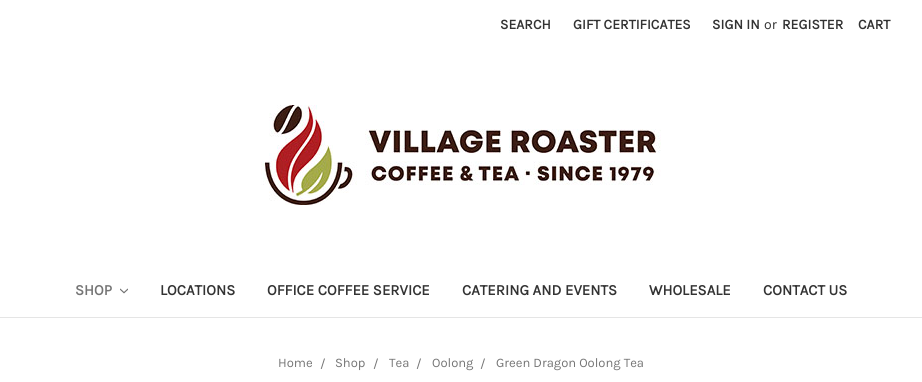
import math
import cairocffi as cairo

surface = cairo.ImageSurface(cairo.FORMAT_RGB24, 922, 382)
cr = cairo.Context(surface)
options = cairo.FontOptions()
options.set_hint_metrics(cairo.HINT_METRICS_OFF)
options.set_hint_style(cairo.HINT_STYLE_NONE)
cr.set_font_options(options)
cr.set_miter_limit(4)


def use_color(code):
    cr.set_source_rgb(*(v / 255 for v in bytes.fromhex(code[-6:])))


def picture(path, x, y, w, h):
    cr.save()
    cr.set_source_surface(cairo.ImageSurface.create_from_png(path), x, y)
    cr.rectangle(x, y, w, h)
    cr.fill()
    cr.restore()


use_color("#ffffff")
cr.paint()
use_color("#e5e5e5")
cr.rectangle(0, 317, 922, 1)
cr.fill()
cr.select_font_face("Karla", cairo.FONT_SLANT_NORMAL, cairo.FONT_WEIGHT_BOLD)
cr.set_font_size(14)
use_color("#333333")
cr.move_to(500, 29)
cr.show_text("SEARCH")
cr.move_to(573, 29)
cr.show_text("GIFT CERTIFICATES")
cr.move_to(712, 29)
cr.show_text("SIGN IN")
cr.select_font_face("Karla")
cr.move_to(764, 29)
cr.show_text("or")
cr.select_font_face("Karla", cairo.FONT_SLANT_NORMAL, cairo.FONT_WEIGHT_BOLD)
cr.move_to(782, 29)
cr.show_text("REGISTER")
cr.move_to(858, 29)
cr.show_text("CART")
picture("img1.png", 261, 105, 400, 100)
cr.set_font_size(15)
use_color("#757575")
cr.move_to(75, 295)
cr.show_text("SHOP")
picture("img2.png", 120, 288, 8, 6)
use_color("#333333")
cr.move_to(160, 295)
cr.show_text("LOCATIONS")
cr.move_to(267, 295)
cr.show_text("OFFICE COFFEE SERVICE")
cr.move_to(462, 295)
cr.show_text("CATERING AND EVENTS")
cr.move_to(649, 295)
cr.show_text("WHOLESALE")
cr.move_to(763, 295)
cr.show_text("CONTACT US")
cr.select_font_face("Karla")
cr.set_font_size(13)
use_color("#757575")
cr.move_to(278, 367)
cr.show_text("Home")
cr.move_to(320, 368)
cr.show_text("/")
cr.move_to(335, 367)
cr.show_text("Shop")
cr.move_to(373, 368)
cr.show_text("/")
cr.move_to(389, 367)
cr.show_text("Tea")
cr.move_to(416, 368)
cr.show_text("/")
cr.move_to(432, 367)
cr.show_text("Oolong")
cr.move_to(480, 368)
cr.show_text("/")
cr.move_to(496, 367)
cr.show_text("Green Dragon Oolong Tea")
surface.write_to_png("result.png")
